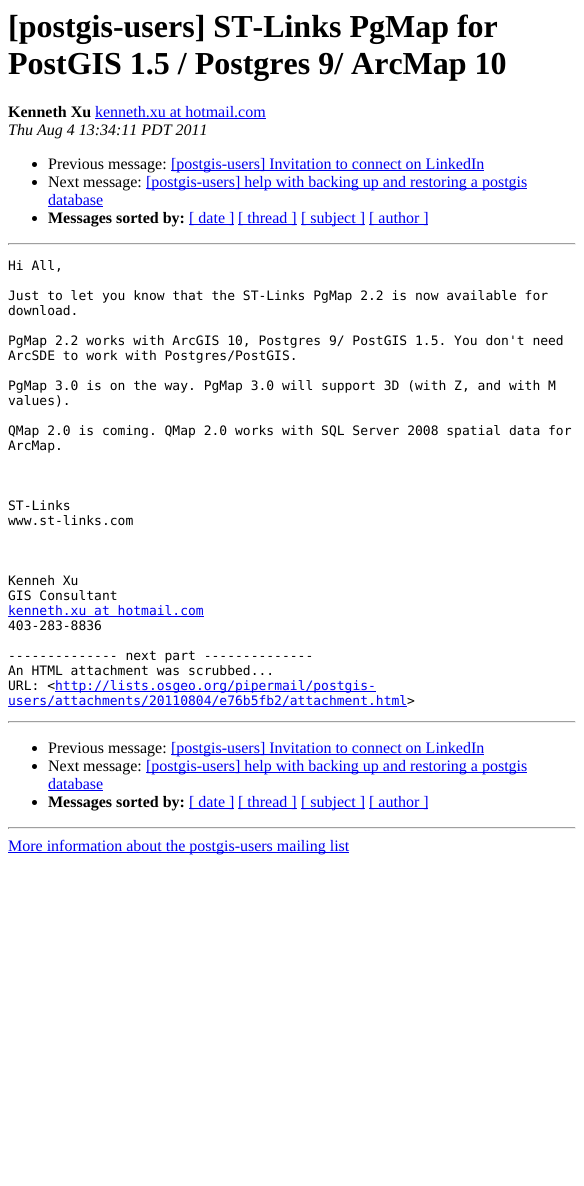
import math
import cairocffi as cairo

surface = cairo.ImageSurface(cairo.FORMAT_RGB24, 584, 1186)
cr = cairo.Context(surface)
options = cairo.FontOptions()
options.set_hint_metrics(cairo.HINT_METRICS_OFF)
options.set_hint_style(cairo.HINT_STYLE_NONE)
cr.set_font_options(options)
cr.set_miter_limit(4)


def use_color(code):
    cr.set_source_rgb(*(v / 255 for v in bytes.fromhex(code[-6:])))


use_color("#ffffff")
cr.paint()
cr.select_font_face("Liberation Serif", cairo.FONT_SLANT_NORMAL, cairo.FONT_WEIGHT_BOLD)
cr.set_font_size(32)
use_color("#000000")
cr.move_to(8, 37)
cr.show_text("[postgis-users] ST-Links PgMap for")
cr.move_to(8, 74)
cr.show_text("PostGIS 1.5 / Postgres 9/ ArcMap 10")
cr.set_font_size(16)
cr.move_to(8, 117)
cr.show_text("Kenneth Xu")
cr.select_font_face("Liberation Serif")
use_color("#0000ee")
cr.move_to(95, 117)
cr.show_text("kenneth.xu at hotmail.com")
cr.rectangle(95, 118, 171, 1)
cr.fill()
cr.select_font_face("Liberation Serif", cairo.FONT_SLANT_ITALIC)
use_color("#000000")
cr.move_to(8, 135)
cr.show_text("Thu Aug 4 13:34:11 PDT 2011")
cr.new_path()
cr.arc(34.5, 164.5, 2.5, 0, 2 * math.pi)
cr.fill()
cr.select_font_face("Liberation Serif")
cr.move_to(48, 169)
cr.show_text("Previous message:")
use_color("#0000ee")
cr.rectangle(171, 170, 313, 1)
cr.fill()
cr.move_to(171, 169)
cr.show_text("[postgis-users] Invitation to connect on LinkedIn")
use_color("#000000")
cr.new_path()
cr.arc(34.5, 182.5, 2.5, 0, 2 * math.pi)
cr.fill()
cr.move_to(48, 187)
cr.show_text("Next message:")
use_color("#0000ee")
cr.rectangle(146, 188, 381, 1)
cr.fill()
cr.move_to(146, 187)
cr.show_text("[postgis-users] help with backing up and restoring a postgis")
cr.move_to(48, 205)
cr.show_text("database")
cr.rectangle(48, 206, 55, 1)
cr.fill()
use_color("#000000")
cr.arc(34.5, 218.5, 2.5, 0, 2 * math.pi)
cr.fill()
cr.select_font_face("Liberation Serif", cairo.FONT_SLANT_NORMAL, cairo.FONT_WEIGHT_BOLD)
cr.move_to(48, 223)
cr.show_text("Messages sorted by:")
use_color("#0000ee")
cr.rectangle(189, 224, 45, 1)
cr.fill()
cr.select_font_face("Liberation Serif")
cr.move_to(189, 223)
cr.show_text("[ date ]")
cr.rectangle(238, 224, 59, 1)
cr.fill()
cr.move_to(238, 223)
cr.show_text("[ thread ]")
cr.rectangle(301, 224, 64, 1)
cr.fill()
cr.move_to(301, 223)
cr.show_text("[ subject ]")
cr.rectangle(369, 224, 59, 1)
cr.fill()
cr.move_to(369, 223)
cr.show_text("[ author ]")
use_color("#9f9f9f")
cr.rectangle(8, 243, 568, 1)
cr.fill()
use_color("#eeeeee")
cr.rectangle(575, 243, 1, 2)
cr.fill()
cr.rectangle(8, 244, 568, 1)
cr.fill()
use_color("#9f9f9f")
cr.rectangle(8, 243, 1, 2)
cr.fill()
cr.select_font_face("DejaVu Sans Mono")
cr.set_font_size(13)
use_color("#000000")
cr.move_to(8, 270)
cr.show_text("Hi All,")
cr.move_to(8, 300)
cr.show_text("Just to let you know that the ST-Links PgMap 2.2 is now available for")
cr.move_to(8, 315)
cr.show_text("download.")
cr.move_to(8, 345)
cr.show_text("PgMap 2.2 works with ArcGIS 10, Postgres 9/ PostGIS 1.5. You don't need")
cr.move_to(8, 360)
cr.show_text("ArcSDE to work with Postgres/PostGIS.")
cr.move_to(8, 390)
cr.show_text("PgMap 3.0 is on the way. PgMap 3.0 will support 3D (with Z, and with M")
cr.move_to(8, 405)
cr.show_text("values).")
cr.move_to(8, 435)
cr.show_text("QMap 2.0 is coming. QMap 2.0 works with SQL Server 2008 spatial data for")
cr.move_to(8, 450)
cr.show_text("ArcMap.")
cr.move_to(8, 510)
cr.show_text("ST-Links")
cr.move_to(8, 525)
cr.show_text("www.st-links.com")
cr.move_to(8, 585)
cr.show_text("Kenneh Xu")
cr.move_to(8, 600)
cr.show_text("GIS Consultant")
use_color("#0000ee")
cr.move_to(8, 615)
cr.show_text("kenneth.xu at hotmail.com")
cr.rectangle(8, 616, 196, 1)
cr.fill()
use_color("#000000")
cr.move_to(8, 630)
cr.show_text("403-283-8836")
cr.move_to(8, 660)
cr.show_text("-------------- next part --------------")
cr.move_to(8, 675)
cr.show_text("An HTML attachment was scrubbed...")
cr.move_to(8, 690)
cr.show_text("URL: <")
use_color("#0000ee")
cr.rectangle(55, 691, 321, 1)
cr.fill()
cr.move_to(55, 690)
cr.show_text("http://lists.osgeo.org/pipermail/postgis-")
cr.rectangle(8, 706, 399, 1)
cr.fill()
cr.move_to(8, 705)
cr.show_text("users/attachments/20110804/e76b5fb2/attachment.html")
use_color("#000000")
cr.move_to(407, 705)
cr.show_text(">")
use_color("#9f9f9f")
cr.rectangle(8, 721, 568, 1)
cr.fill()
use_color("#eeeeee")
cr.rectangle(575, 721, 1, 2)
cr.fill()
cr.rectangle(8, 722, 568, 1)
cr.fill()
use_color("#9f9f9f")
cr.rectangle(8, 721, 1, 2)
cr.fill()
use_color("#000000")
cr.arc(34.5, 748.5, 2.5, 0, 2 * math.pi)
cr.fill()
cr.select_font_face("Liberation Serif")
cr.set_font_size(16)
cr.move_to(48, 753)
cr.show_text("Previous message:")
use_color("#0000ee")
cr.rectangle(171, 754, 313, 1)
cr.fill()
cr.move_to(171, 753)
cr.show_text("[postgis-users] Invitation to connect on LinkedIn")
use_color("#000000")
cr.new_path()
cr.arc(34.5, 766.5, 2.5, 0, 2 * math.pi)
cr.fill()
cr.move_to(48, 771)
cr.show_text("Next message:")
use_color("#0000ee")
cr.rectangle(146, 772, 381, 1)
cr.fill()
cr.move_to(146, 771)
cr.show_text("[postgis-users] help with backing up and restoring a postgis")
cr.move_to(48, 789)
cr.show_text("database")
cr.rectangle(48, 790, 55, 1)
cr.fill()
use_color("#000000")
cr.arc(34.5, 802.5, 2.5, 0, 2 * math.pi)
cr.fill()
cr.select_font_face("Liberation Serif", cairo.FONT_SLANT_NORMAL, cairo.FONT_WEIGHT_BOLD)
cr.move_to(48, 807)
cr.show_text("Messages sorted by:")
use_color("#0000ee")
cr.rectangle(189, 808, 45, 1)
cr.fill()
cr.select_font_face("Liberation Serif")
cr.move_to(189, 807)
cr.show_text("[ date ]")
cr.rectangle(238, 808, 59, 1)
cr.fill()
cr.move_to(238, 807)
cr.show_text("[ thread ]")
cr.rectangle(301, 808, 64, 1)
cr.fill()
cr.move_to(301, 807)
cr.show_text("[ subject ]")
cr.rectangle(369, 808, 59, 1)
cr.fill()
cr.move_to(369, 807)
cr.show_text("[ author ]")
use_color("#9f9f9f")
cr.rectangle(8, 827, 568, 1)
cr.fill()
use_color("#eeeeee")
cr.rectangle(575, 827, 1, 2)
cr.fill()
cr.rectangle(8, 828, 568, 1)
cr.fill()
use_color("#9f9f9f")
cr.rectangle(8, 827, 1, 2)
cr.fill()
use_color("#0000ee")
cr.rectangle(8, 852, 341, 1)
cr.fill()
cr.move_to(8, 851)
cr.show_text("More information about the postgis-users mailing list")
surface.write_to_png("result.png")
